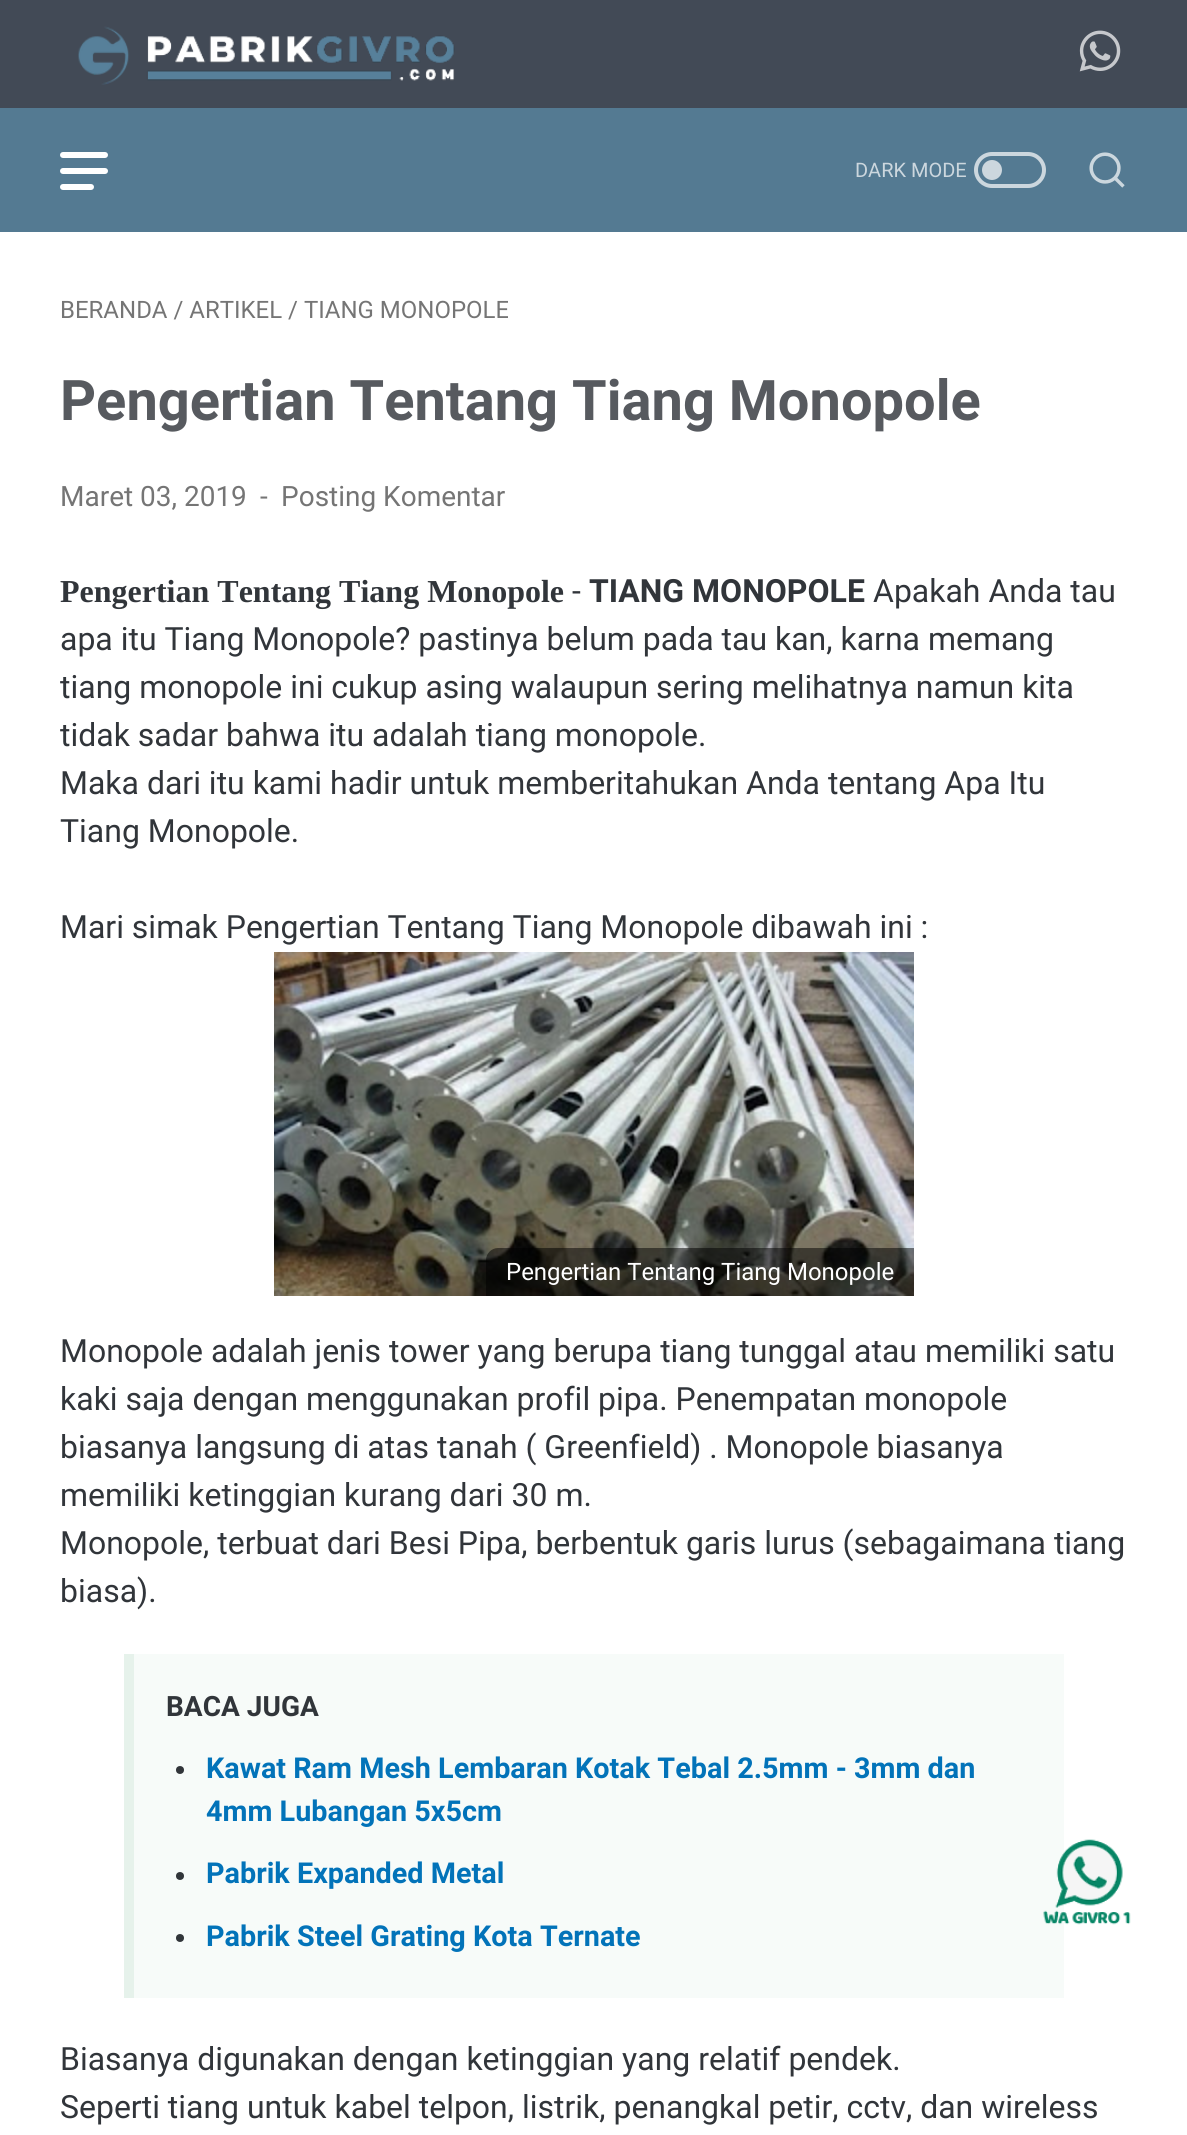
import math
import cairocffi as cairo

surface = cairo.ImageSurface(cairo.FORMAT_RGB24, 1187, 2135)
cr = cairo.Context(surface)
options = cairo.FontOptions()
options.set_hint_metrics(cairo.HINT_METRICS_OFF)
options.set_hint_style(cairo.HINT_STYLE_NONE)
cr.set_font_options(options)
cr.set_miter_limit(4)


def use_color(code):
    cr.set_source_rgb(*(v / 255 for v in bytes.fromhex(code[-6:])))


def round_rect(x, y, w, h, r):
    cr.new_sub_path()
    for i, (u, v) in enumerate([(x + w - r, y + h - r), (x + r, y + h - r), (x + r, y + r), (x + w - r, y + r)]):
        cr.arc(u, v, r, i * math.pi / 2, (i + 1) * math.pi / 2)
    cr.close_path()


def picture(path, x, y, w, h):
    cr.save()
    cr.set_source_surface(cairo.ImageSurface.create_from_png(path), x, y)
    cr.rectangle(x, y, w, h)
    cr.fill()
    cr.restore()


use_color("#547a92")
cr.paint()
use_color("#424a56")
cr.rectangle(0, 0, 1187, 108)
cr.fill()
picture("img1.png", 78, 26, 377, 59)
picture("img2.png", 1079, 30, 42, 42)
use_color("#ffffff")
round_rect(60, 152, 48, 6, 3)
cr.fill()
round_rect(60, 168, 48, 6, 3)
cr.fill()
round_rect(60, 184, 34, 6, 3)
cr.fill()
cr.select_font_face("Roboto")
cr.set_font_size(20)
use_color("#ccd7de")
cr.move_to(855, 177)
cr.show_text("DARK MODE")
round_rect(976, 154, 68, 32, 16)
cr.set_line_width(4)
cr.stroke()
cr.arc(992, 170, 10, 0, 2 * math.pi)
cr.fill()
picture("img3.png", 1089, 152, 36, 36)
use_color("#ffffff")
cr.rectangle(0, 232, 1187, 1903)
cr.fill()
cr.set_font_size(24)
use_color("#757575")
cr.move_to(60, 318)
cr.show_text("BERANDA / ARTIKEL / TIANG MONOPOLE")
cr.select_font_face("Roboto", cairo.FONT_SLANT_NORMAL, cairo.FONT_WEIGHT_BOLD)
cr.set_font_size(56)
use_color("#575a5f")
cr.move_to(60, 420)
cr.show_text("Pengertian Tentang Tiang Monopole")
cr.select_font_face("Roboto")
cr.set_font_size(28)
use_color("#757575")
cr.move_to(60, 506)
cr.show_text("Maret 03, 2019")
cr.move_to(260, 506)
cr.show_text("-")
cr.move_to(281, 506)
cr.show_text("Posting Komentar")
cr.select_font_face("Liberation Serif", cairo.FONT_SLANT_NORMAL, cairo.FONT_WEIGHT_BOLD)
cr.set_font_size(32)
use_color("#31353a")
cr.move_to(60, 602)
cr.show_text("Pengertian Tentang Tiang Monopole")
cr.select_font_face("Roboto")
cr.move_to(572, 602)
cr.show_text("-")
cr.select_font_face("Roboto", cairo.FONT_SLANT_NORMAL, cairo.FONT_WEIGHT_BOLD)
cr.move_to(589, 602)
cr.show_text("TIANG MONOPOLE")
cr.select_font_face("Roboto")
cr.move_to(873, 602)
cr.show_text("Apakah Anda tau")
cr.move_to(60, 650)
cr.show_text("apa itu Tiang Monopole? pastinya belum pada tau kan, karna memang")
cr.move_to(60, 698)
cr.show_text("tiang monopole ini cukup asing walaupun sering melihatnya namun kita")
cr.move_to(60, 746)
cr.show_text("tidak sadar bahwa itu adalah tiang monopole.")
cr.move_to(60, 794)
cr.show_text("Maka dari itu kami hadir untuk memberitahukan Anda tentang Apa Itu")
cr.move_to(60, 842)
cr.show_text("Tiang Monopole.")
cr.move_to(60, 938)
cr.show_text("Mari simak Pengertian Tentang Tiang Monopole dibawah ini :")
picture("img4.png", 274, 952, 640, 344)
cr.set_source_rgba(0, 0, 0, 0.5)
cr.new_path()
cr.move_to(498, 1248)
cr.line_to(914, 1248)
cr.line_to(914, 1296)
cr.line_to(486, 1296)
cr.line_to(486, 1260)
cr.curve_to(486, 1253.5, 491.5, 1248, 498, 1248)
cr.close_path()
cr.fill()
cr.set_font_size(24)
use_color("#ffffff")
cr.move_to(506, 1280)
cr.show_text("Pengertian Tentang Tiang Monopole")
cr.set_font_size(32)
use_color("#31353a")
cr.move_to(60, 1362)
cr.show_text("Monopole adalah jenis tower yang berupa tiang tunggal atau memiliki satu")
cr.move_to(60, 1410)
cr.show_text("kaki saja dengan menggunakan profil pipa. Penempatan monopole")
cr.move_to(60, 1458)
cr.show_text("biasanya langsung di atas tanah ( Greenfield) . Monopole biasanya")
cr.move_to(60, 1506)
cr.show_text("memiliki ketinggian kurang dari 30 m.")
cr.move_to(60, 1554)
cr.show_text("Monopole, terbuat dari Besi Pipa, berbentuk garis lurus (sebagaimana tiang")
cr.move_to(60, 1602)
cr.show_text("biasa).")
use_color("#f7fbf9")
cr.rectangle(134, 1654, 930, 344)
cr.fill()
use_color("#e6f2eb")
cr.rectangle(124, 1654, 10, 344)
cr.fill()
cr.select_font_face("Roboto", cairo.FONT_SLANT_NORMAL, cairo.FONT_WEIGHT_BOLD)
cr.set_font_size(28)
use_color("#31353a")
cr.move_to(166, 1716)
cr.show_text("BACA JUGA")
cr.new_path()
cr.arc(180, 1770, 4, 0, 2 * math.pi)
cr.fill()
cr.set_font_size(28.8)
use_color("#0273b9")
cr.move_to(206, 1778)
cr.show_text("Kawat Ram Mesh Lembaran Kotak Tebal 2.5mm - 3mm dan")
cr.move_to(206, 1821)
cr.show_text("4mm Lubangan 5x5cm")
use_color("#31353a")
cr.new_path()
cr.arc(180, 1876, 4, 0, 2 * math.pi)
cr.fill()
use_color("#0273b9")
cr.move_to(206, 1883)
cr.show_text("Pabrik Expanded Metal")
use_color("#31353a")
cr.new_path()
cr.arc(180, 1938, 4, 0, 2 * math.pi)
cr.fill()
use_color("#0273b9")
cr.move_to(206, 1946)
cr.show_text("Pabrik Steel Grating Kota Ternate")
cr.select_font_face("Roboto")
cr.set_font_size(32)
use_color("#31353a")
cr.move_to(60, 2070)
cr.show_text("Biasanya digunakan dengan ketinggian yang relatif pendek.")
cr.move_to(60, 2118)
cr.show_text("Seperti tiang untuk kabel telpon, listrik, penangkal petir, cctv, dan wireless")
picture("img5.png", 1043, 1839, 88, 86)
surface.write_to_png("result.png")
